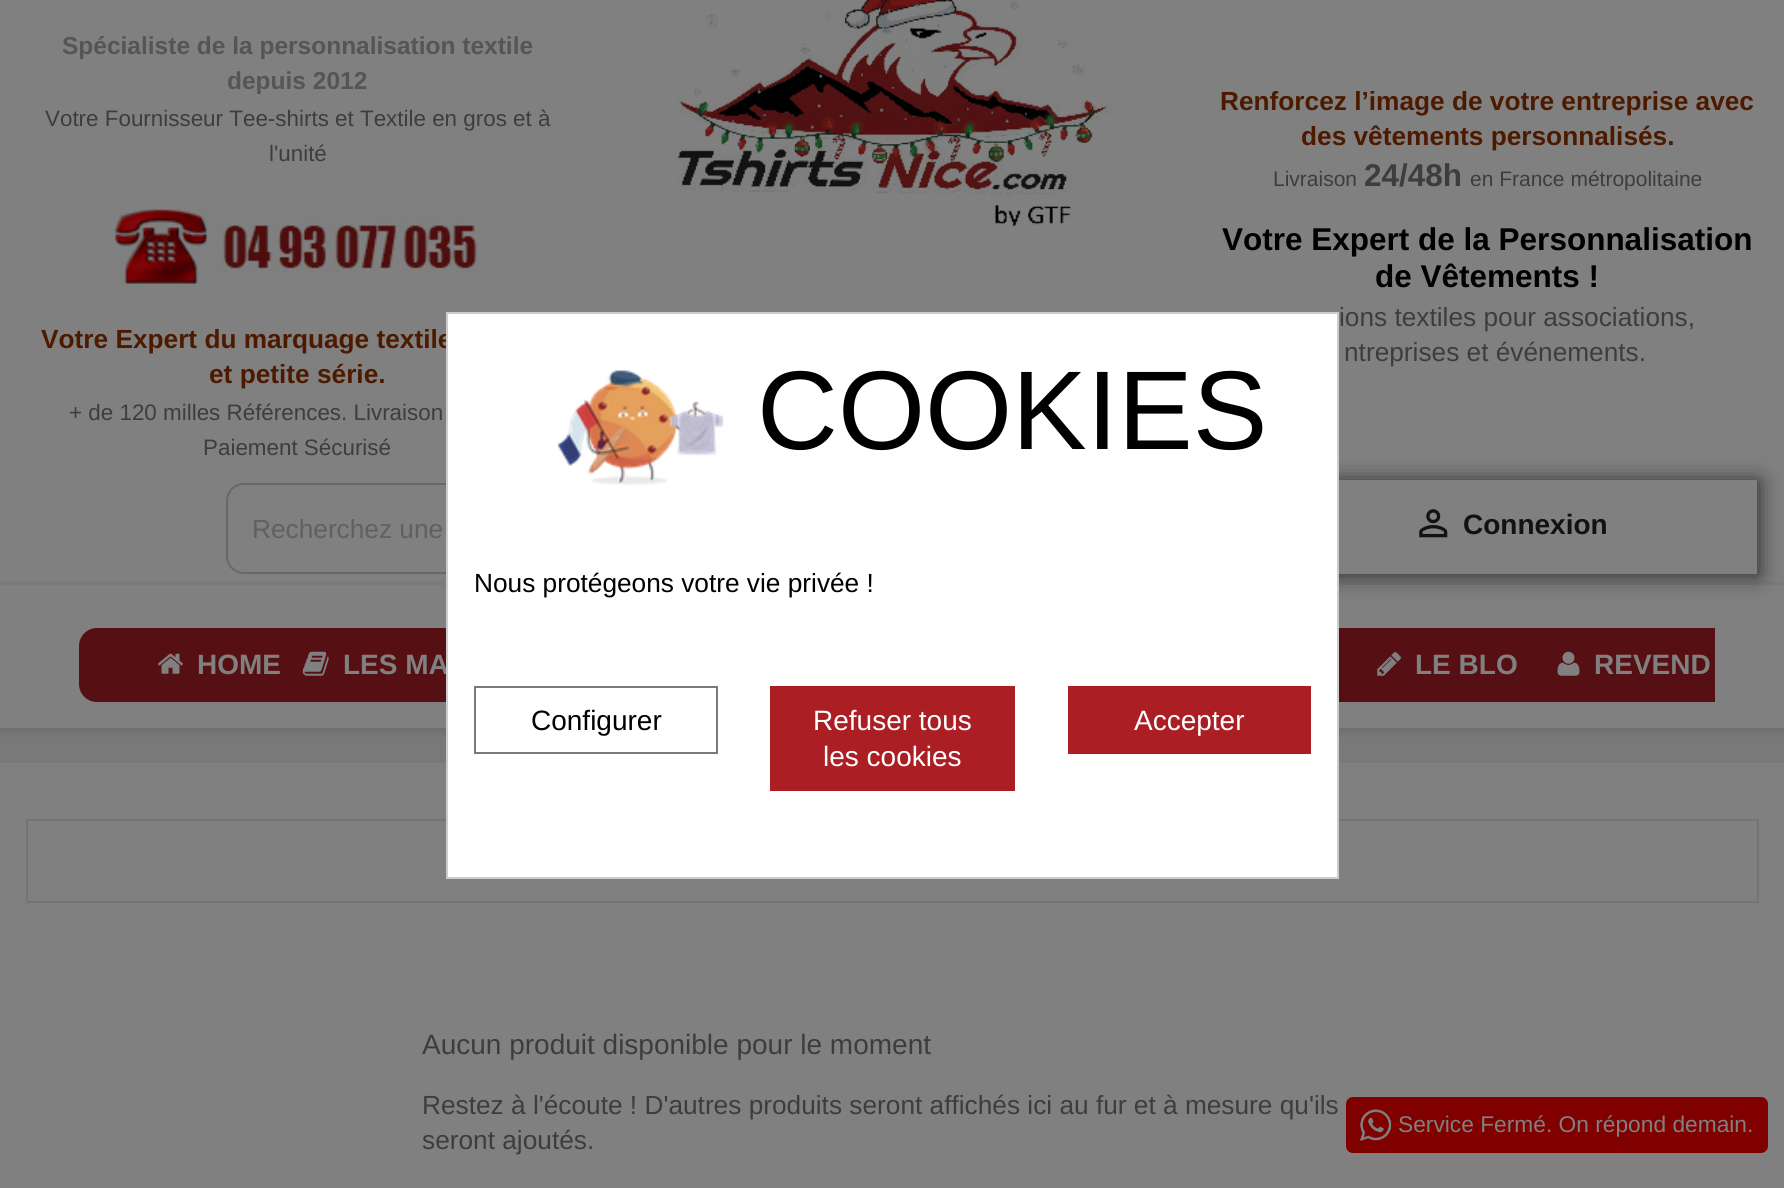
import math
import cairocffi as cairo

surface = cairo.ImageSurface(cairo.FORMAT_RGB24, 1784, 1188)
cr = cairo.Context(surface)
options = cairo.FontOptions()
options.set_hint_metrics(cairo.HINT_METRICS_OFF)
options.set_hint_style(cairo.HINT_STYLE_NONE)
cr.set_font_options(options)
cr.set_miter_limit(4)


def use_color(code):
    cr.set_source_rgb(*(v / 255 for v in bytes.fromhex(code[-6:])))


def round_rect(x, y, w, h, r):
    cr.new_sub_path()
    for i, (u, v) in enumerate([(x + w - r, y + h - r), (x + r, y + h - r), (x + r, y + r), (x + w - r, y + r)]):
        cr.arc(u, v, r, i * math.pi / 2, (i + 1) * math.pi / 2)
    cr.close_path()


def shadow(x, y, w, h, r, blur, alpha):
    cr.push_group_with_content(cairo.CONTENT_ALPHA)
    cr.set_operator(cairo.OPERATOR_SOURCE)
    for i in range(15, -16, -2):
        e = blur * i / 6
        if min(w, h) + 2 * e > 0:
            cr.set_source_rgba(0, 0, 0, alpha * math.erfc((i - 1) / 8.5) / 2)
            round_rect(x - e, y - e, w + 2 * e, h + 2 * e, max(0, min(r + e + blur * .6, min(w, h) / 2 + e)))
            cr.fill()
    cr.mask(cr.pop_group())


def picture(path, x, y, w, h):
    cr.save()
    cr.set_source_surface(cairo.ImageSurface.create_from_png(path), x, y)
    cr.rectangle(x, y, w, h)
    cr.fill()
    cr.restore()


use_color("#797979")
cr.paint()
use_color("#000000")
shadow(0, 4, 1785, 728, 0, 4.5, 0.11)
use_color("#808080")
cr.rectangle(0, 0, 1784, 728)
cr.fill()
use_color("#7b7b7b")
cr.rectangle(0, 581, 1784, 4)
cr.fill()
cr.select_font_face("Liberation Sans", cairo.FONT_SLANT_NORMAL, cairo.FONT_WEIGHT_BOLD)
cr.set_font_size(24.5)
use_color("#555555")
cr.move_to(62, 54)
cr.show_text("Spécialiste de la personnalisation textile")
cr.move_to(227, 89)
cr.show_text("depuis 2012")
cr.select_font_face("Liberation Sans")
cr.set_font_size(22.4)
use_color("#3d3d3d")
cr.move_to(45, 126)
cr.show_text("Votre Fournisseur Tee-shirts et Textile en gros et à")
cr.move_to(269, 161)
cr.show_text("l'unité")
picture("img1.png", 115, 209, 362, 75)
cr.select_font_face("Liberation Sans", cairo.FONT_SLANT_NORMAL, cairo.FONT_WEIGHT_BOLD)
cr.set_font_size(26.25)
use_color("#4d1a00")
cr.move_to(41, 348)
cr.show_text("Votre Expert du marquage textile")
cr.move_to(209, 383)
cr.show_text("et petite série.")
cr.select_font_face("Liberation Sans")
cr.set_font_size(22.4)
use_color("#3d3d3d")
cr.move_to(69, 420)
cr.show_text("+ de 120 milles Références. Livraison")
cr.move_to(203, 455)
cr.show_text("Paiement Sécurisé")
picture("img2.png", 675, 0, 439, 226)
cr.select_font_face("Liberation Sans", cairo.FONT_SLANT_NORMAL, cairo.FONT_WEIGHT_BOLD)
cr.set_font_size(26.25)
use_color("#4d1a00")
cr.move_to(1220, 110)
cr.show_text("Renforcez l’image de votre entreprise avec")
cr.move_to(1301, 145)
cr.show_text("des vêtements personnalisés.")
cr.select_font_face("Liberation Sans")
cr.set_font_size(21)
use_color("#3d3d3d")
cr.move_to(1273, 186)
cr.show_text("Livraison")
cr.select_font_face("Liberation Sans", cairo.FONT_SLANT_NORMAL, cairo.FONT_WEIGHT_BOLD)
cr.set_font_size(31.5)
cr.move_to(1364, 186)
cr.show_text("24/48h")
cr.select_font_face("Liberation Sans")
cr.set_font_size(21)
cr.move_to(1470, 186)
cr.show_text("en France métropolitaine")
cr.select_font_face("Liberation Sans", cairo.FONT_SLANT_NORMAL, cairo.FONT_WEIGHT_BOLD)
cr.set_font_size(31.5)
use_color("#000000")
cr.move_to(1222, 250)
cr.show_text("Votre Expert de la Personnalisation")
cr.move_to(1375, 287)
cr.show_text("de Vêtements !")
cr.select_font_face("Liberation Sans")
cr.set_font_size(26.25)
use_color("#3d3d3d")
cr.move_to(1339, 326)
cr.show_text("ions textiles pour associations,")
cr.move_to(1344, 361)
cr.show_text("ntreprises et événements.")
round_rect(227, 484, 488, 89, 17)
use_color("#686868")
cr.stroke()
use_color("#606060")
cr.move_to(252, 538)
cr.show_text("Recherchez une")
cr.save()
cr.set_fill_rule(cairo.FILL_RULE_EVEN_ODD)
cr.new_path()
cr.move_to(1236, 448)
cr.line_to(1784, 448)
cr.line_to(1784, 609)
cr.line_to(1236, 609)
cr.close_path()
cr.move_to(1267, 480)
cr.line_to(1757, 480)
cr.line_to(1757, 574)
cr.line_to(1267, 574)
cr.close_path()
cr.clip()
use_color("#2b2b2b")
shadow(1269, 481, 490, 95, 0, 10.5, 1)
cr.restore()
picture("img3.png", 1419, 509, 29, 29)
cr.select_font_face("Liberation Sans", cairo.FONT_SLANT_NORMAL, cairo.FONT_WEIGHT_BOLD)
cr.set_font_size(28)
use_color("#121212")
cr.move_to(1463, 534)
cr.show_text("Connexion")
use_color("#560f12")
round_rect(79, 628, 280, 74, 18)
cr.fill()
picture("img4.png", 158, 653, 25, 21)
use_color("#808080")
cr.move_to(197, 674)
cr.show_text("HOME")
use_color("#560f12")
round_rect(285, 628, 280, 74, 18)
cr.fill()
picture("img5.png", 302, 651, 27, 25)
use_color("#808080")
cr.move_to(343, 674)
cr.show_text("LES MA")
use_color("#560f12")
cr.rectangle(1339, 628, 203, 74)
cr.fill()
picture("img6.png", 1377, 652, 24, 24)
use_color("#808080")
cr.move_to(1415, 674)
cr.show_text("LE BLO")
use_color("#560f12")
cr.new_path()
cr.move_to(1542, 628)
cr.line_to(1715, 628)
cr.line_to(1715, 702)
cr.line_to(1542, 702)
cr.curve_to(1532, 702, 1524, 694, 1524, 684)
cr.line_to(1524, 646)
cr.curve_to(1524, 636, 1532, 628, 1542, 628)
cr.close_path()
cr.fill()
picture("img7.png", 1557, 651, 23, 25)
use_color("#808080")
cr.move_to(1594, 674)
cr.show_text("REVEND")
cr.rectangle(0, 763, 1784, 425)
cr.fill()
cr.rectangle(27, 820, 1731, 82)
use_color("#747474")
cr.stroke()
cr.select_font_face("Liberation Sans")
use_color("#3d3d3d")
cr.move_to(422, 1054)
cr.show_text("Aucun produit disponible pour le moment")
cr.set_font_size(26.25)
cr.move_to(422, 1114)
cr.show_text("Restez à l'écoute ! D'autres produits seront affichés ici au fur et à mesure qu'ils")
cr.move_to(422, 1149)
cr.show_text("seront ajoutés.")
use_color("#ffffff")
cr.rectangle(447, 313, 891, 565)
cr.fill_preserve()
use_color("#cccccc")
cr.stroke()
picture("img8.png", 557, 369, 167, 116)
cr.set_font_size(112)
use_color("#000000")
cr.move_to(757, 449)
cr.show_text("COOKIES")
cr.set_font_size(26.25)
cr.move_to(474, 592)
cr.show_text("Nous protégeons votre vie privée !")
cr.rectangle(475, 687, 242, 66)
use_color("#7a7a7a")
cr.stroke()
cr.set_font_size(28)
use_color("#000000")
cr.move_to(531, 730)
cr.show_text("Configurer")
use_color("#ab1e24")
cr.rectangle(770, 686, 245, 105)
cr.fill()
use_color("#ffffff")
cr.move_to(813, 730)
cr.show_text("Refuser tous")
cr.move_to(823, 766)
cr.show_text("les cookies")
use_color("#ab1e24")
cr.rectangle(1068, 686, 243, 68)
cr.fill()
use_color("#ffffff")
cr.move_to(1134, 730)
cr.show_text("Accepter")
use_color("#800000")
round_rect(1346, 1097, 422, 56, 7)
cr.fill()
picture("img9.png", 1359, 1109, 33, 32)
cr.set_font_size(22.75)
use_color("#808080")
cr.move_to(1398, 1132)
cr.show_text("Service Fermé. On répond demain.")
surface.write_to_png("result.png")
